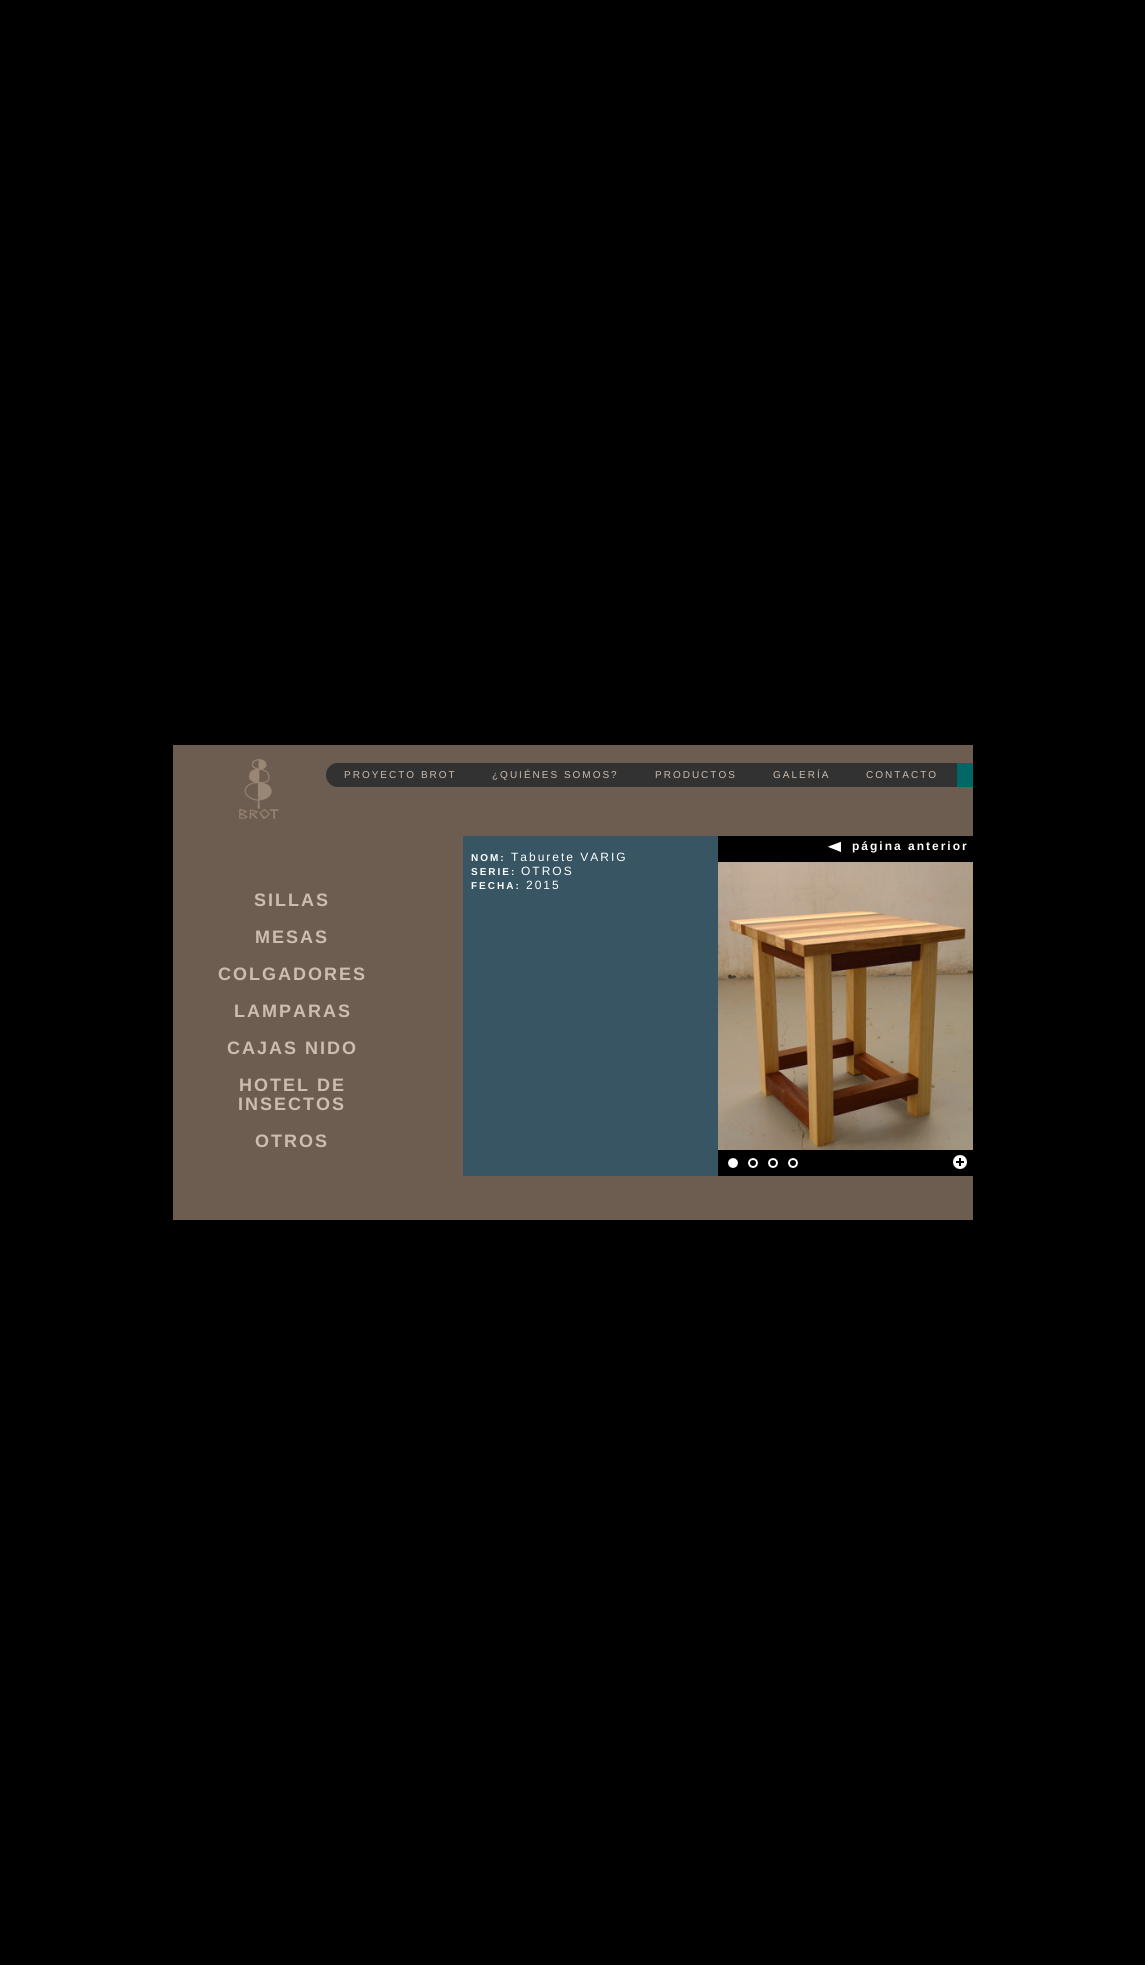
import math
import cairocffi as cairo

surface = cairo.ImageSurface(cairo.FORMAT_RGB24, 1145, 1965)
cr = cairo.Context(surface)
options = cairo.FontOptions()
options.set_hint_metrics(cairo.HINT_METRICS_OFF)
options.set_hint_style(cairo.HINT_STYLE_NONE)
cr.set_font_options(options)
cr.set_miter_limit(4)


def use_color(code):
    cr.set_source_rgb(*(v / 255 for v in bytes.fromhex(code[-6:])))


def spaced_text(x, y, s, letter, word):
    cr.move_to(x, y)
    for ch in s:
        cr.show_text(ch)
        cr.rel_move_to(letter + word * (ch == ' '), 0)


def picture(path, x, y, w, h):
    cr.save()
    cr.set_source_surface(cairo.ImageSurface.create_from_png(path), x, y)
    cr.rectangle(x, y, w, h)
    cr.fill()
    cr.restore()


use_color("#000000")
cr.paint()
use_color("#6d5d50")
cr.rectangle(173, 745, 800, 475)
cr.fill()
picture("img1.png", 239, 759, 40, 60)
use_color("#323232")
cr.rectangle(327, 763, 630, 24)
cr.fill()
picture("img2.png", 326, 763, 10, 24)
use_color("#006666")
cr.rectangle(957, 763, 16, 24)
cr.fill()
cr.select_font_face("Liberation Sans")
cr.set_font_size(10)
use_color("#cdbcaf")
spaced_text(344, 778, "PROYECTO BROT", 2, 0)
spaced_text(492, 778, "¿QUIÉNES SOMOS?", 2, 0)
spaced_text(655, 778, "PRODUCTOS", 2, 0)
spaced_text(773, 778, "GALERÍA", 2, 0)
spaced_text(866, 778, "CONTACTO", 2, 0)
use_color("#375562")
cr.rectangle(463, 836, 255, 340)
cr.fill()
use_color("#000000")
cr.rectangle(718, 836, 255, 26)
cr.fill()
picture("img3.png", 828, 842, 13, 10)
cr.select_font_face("Liberation Sans", cairo.FONT_SLANT_NORMAL, cairo.FONT_WEIGHT_BOLD)
cr.set_font_size(12)
use_color("#ffffff")
spaced_text(852, 850, "página anterior", 2, 0)
cr.set_font_size(10)
spaced_text(471, 861, "NOM:", 2, 0)
cr.select_font_face("Liberation Sans")
cr.set_font_size(12)
spaced_text(511, 861, "Taburete VARIG", 2, 0)
cr.select_font_face("Liberation Sans", cairo.FONT_SLANT_NORMAL, cairo.FONT_WEIGHT_BOLD)
cr.set_font_size(10)
spaced_text(471, 875, "SERIE:", 2, 0)
cr.select_font_face("Liberation Sans")
cr.set_font_size(12)
spaced_text(521, 875, "OTROS", 2, 0)
cr.select_font_face("Liberation Sans", cairo.FONT_SLANT_NORMAL, cairo.FONT_WEIGHT_BOLD)
cr.set_font_size(10)
spaced_text(471, 889, "FECHA:", 2, 0)
cr.select_font_face("Liberation Sans")
cr.set_font_size(12)
spaced_text(526, 889, "2015", 2, 0)
picture("img4.png", 718, 862, 255, 288)
use_color("#000000")
cr.rectangle(718, 1150, 255, 26)
cr.fill()
picture("img5.png", 953, 1155, 14, 14)
picture("img6.png", 728, 1158, 10, 10)
picture("img7.png", 748, 1158, 10, 10)
picture("img7.png", 768, 1158, 10, 10)
picture("img7.png", 788, 1158, 10, 10)
cr.select_font_face("Liberation Sans", cairo.FONT_SLANT_NORMAL, cairo.FONT_WEIGHT_BOLD)
cr.set_font_size(18)
use_color("#cdbcaf")
spaced_text(254, 906, "SILLAS", 2, 0)
spaced_text(255, 943, "MESAS", 2, 0)
spaced_text(218, 980, "COLGADORES", 2, 0)
spaced_text(234, 1017, "LAMPARAS", 2, 0)
spaced_text(227, 1054, "CAJAS NIDO", 2, 0)
spaced_text(239, 1091, "HOTEL DE", 2, 0)
spaced_text(238, 1110, "INSECTOS", 2, 0)
spaced_text(255, 1147, "OTROS", 2, 0)
surface.write_to_png("result.png")
